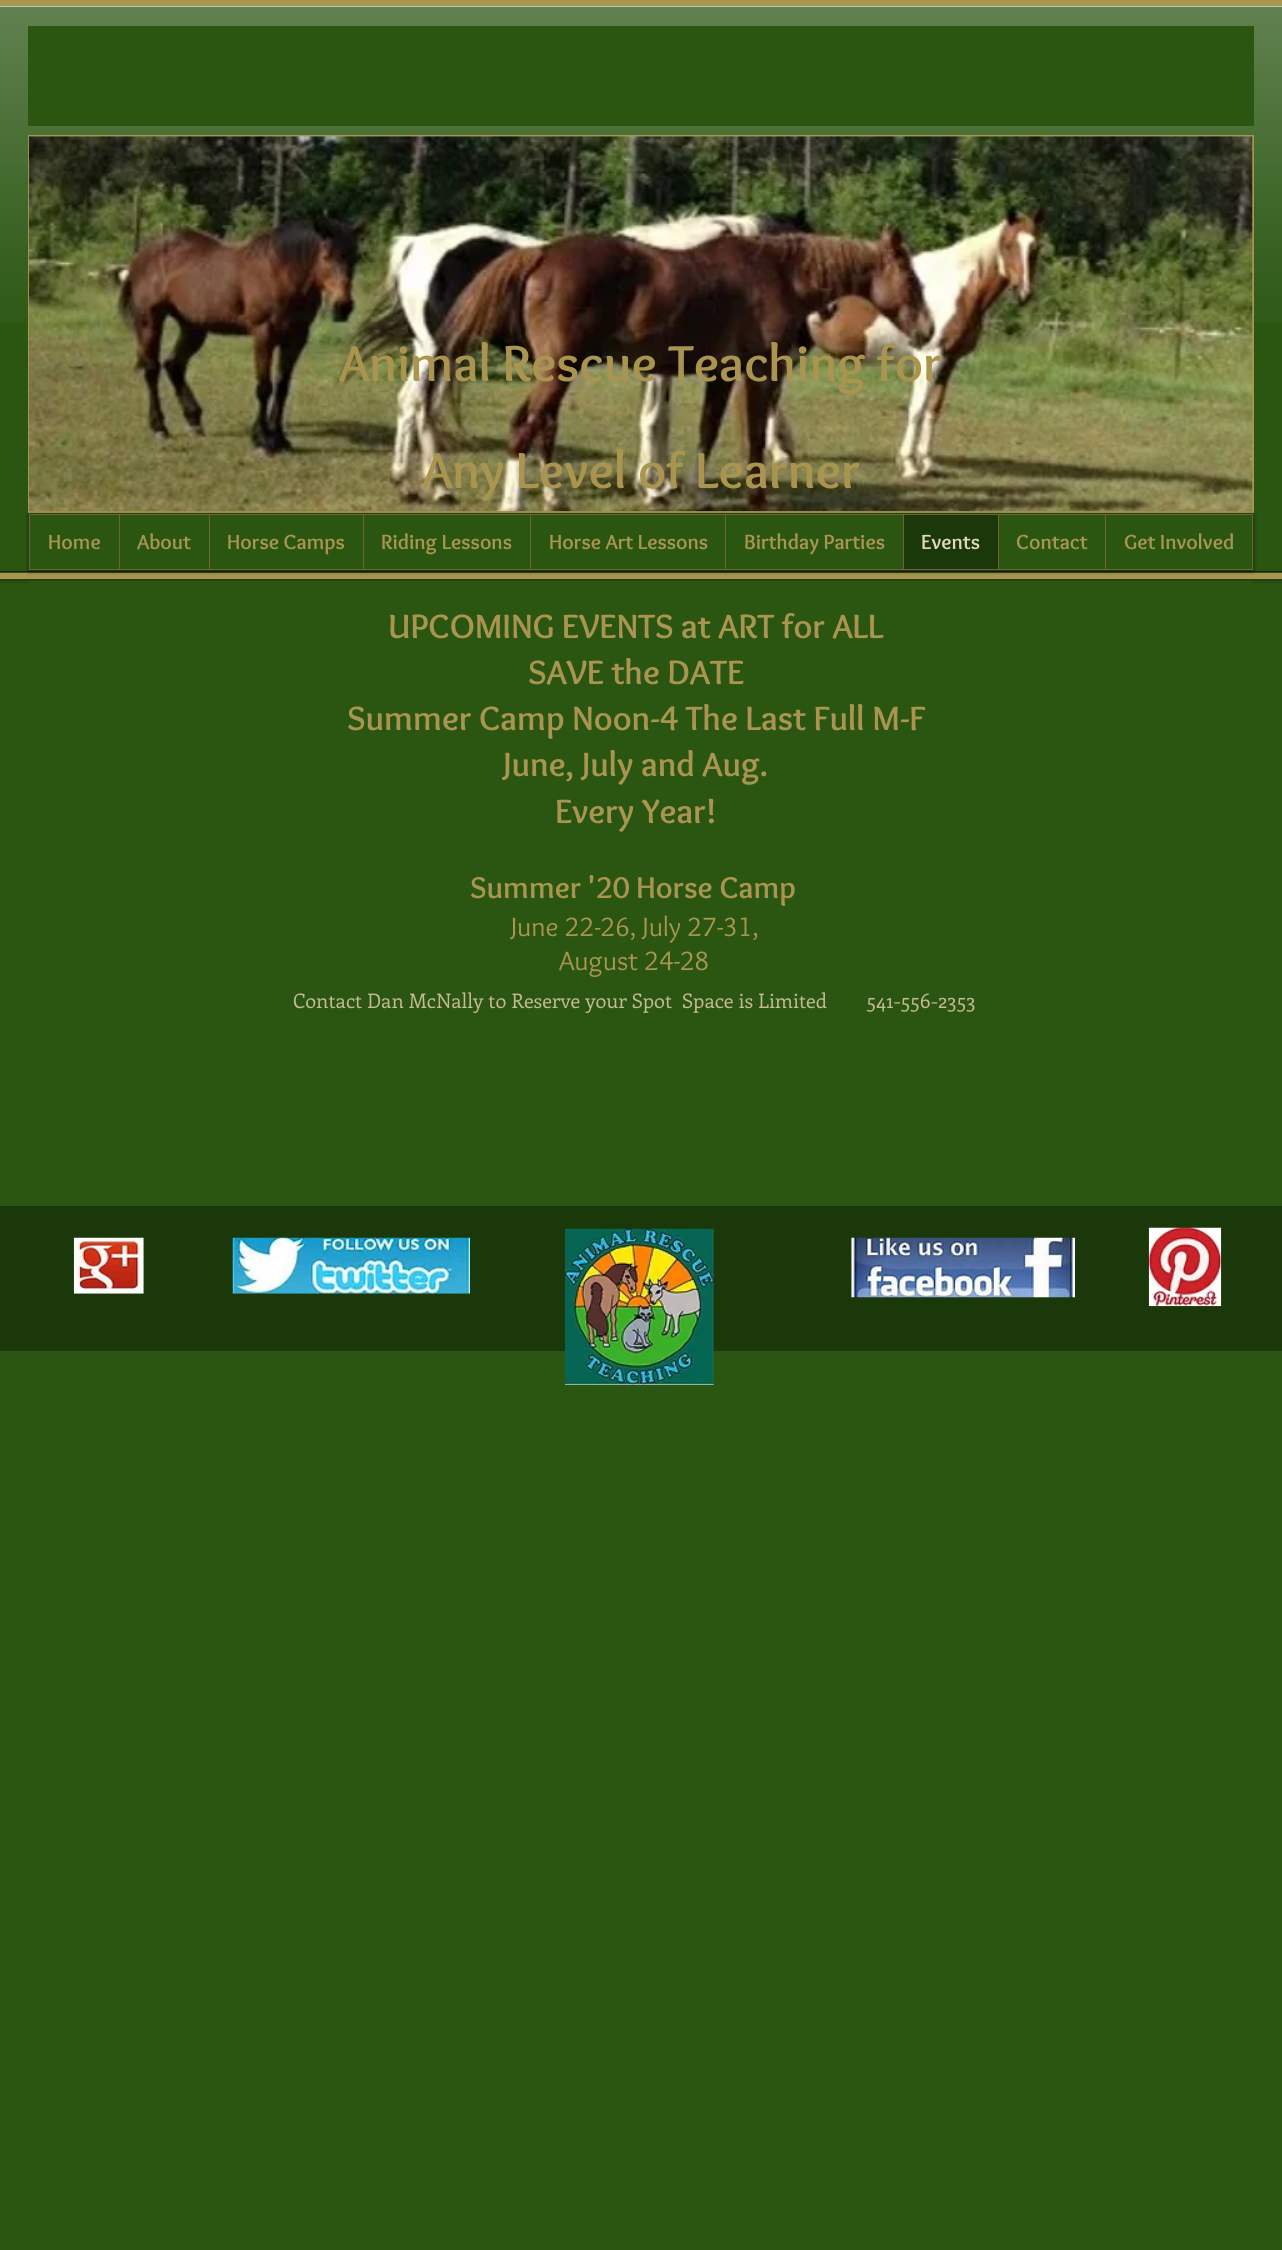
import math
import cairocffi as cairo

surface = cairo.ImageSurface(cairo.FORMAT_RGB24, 1282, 2250)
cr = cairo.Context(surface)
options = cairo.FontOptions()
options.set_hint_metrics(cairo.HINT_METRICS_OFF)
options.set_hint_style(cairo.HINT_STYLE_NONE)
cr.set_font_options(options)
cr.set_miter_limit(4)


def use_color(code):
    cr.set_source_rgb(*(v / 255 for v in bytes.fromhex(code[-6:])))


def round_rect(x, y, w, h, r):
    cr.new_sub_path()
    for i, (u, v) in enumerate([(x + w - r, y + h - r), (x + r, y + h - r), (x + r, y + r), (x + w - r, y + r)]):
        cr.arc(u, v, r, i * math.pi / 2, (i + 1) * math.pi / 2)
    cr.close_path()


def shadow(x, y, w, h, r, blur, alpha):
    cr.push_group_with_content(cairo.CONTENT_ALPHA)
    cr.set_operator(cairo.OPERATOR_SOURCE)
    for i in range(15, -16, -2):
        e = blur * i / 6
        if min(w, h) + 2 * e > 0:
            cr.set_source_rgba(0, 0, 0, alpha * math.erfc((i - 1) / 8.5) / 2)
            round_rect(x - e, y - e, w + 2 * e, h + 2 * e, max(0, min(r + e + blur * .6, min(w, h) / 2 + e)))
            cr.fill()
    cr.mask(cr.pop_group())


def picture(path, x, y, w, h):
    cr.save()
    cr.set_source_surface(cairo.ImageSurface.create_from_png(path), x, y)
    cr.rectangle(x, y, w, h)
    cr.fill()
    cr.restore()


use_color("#2a5612")
cr.paint()
cr.save()
cr.rectangle(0, 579, 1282, 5)
cr.clip()
use_color("#000000")
shadow(0, 0, 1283, 579, 0, 3, 0.6)
cr.restore()
picture("img1.png", 0, 7, 1282, 316)
use_color("#aa9550")
cr.rectangle(28, 135, 1226, 378)
cr.fill()
picture("img2.png", 28, 136, 1225, 376)
cr.select_font_face("Overlock", cairo.FONT_SLANT_NORMAL, cairo.FONT_WEIGHT_BOLD)
cr.set_font_size(52.5)
cr.move_to(339, 381)
cr.show_text("Animal Rescue Teaching for")
cr.move_to(422, 488)
cr.show_text("Any Level of Learner")
use_color("#112207")
cr.rectangle(0, 571, 1282, 1)
cr.fill()
use_color("#bac8b2")
cr.rectangle(0, 6, 1282, 1)
cr.fill()
use_color("#aa9550")
cr.rectangle(0, 0, 1282, 6)
cr.fill()
cr.rectangle(0, 573, 1282, 6)
cr.fill()
use_color("#2a5612")
cr.rectangle(28, 26, 1226, 100)
cr.fill()
use_color("#000000")
shadow(29, 515, 1224, 56, 0, 2.5, 0.6)
use_color("#2a5612")
cr.rectangle(29.5, 514.5, 1223, 55)
cr.fill_preserve()
use_color("#716335")
cr.set_line_width(1)
cr.stroke()
cr.set_font_size(21.25)
use_color("#aa9550")
cr.move_to(48, 549)
cr.show_text("Home")
use_color("#716335")
cr.rectangle(119, 515, 1, 54)
cr.fill()
use_color("#aa9550")
cr.move_to(137, 549)
cr.show_text("About")
use_color("#716335")
cr.rectangle(209, 515, 1, 54)
cr.fill()
use_color("#aa9550")
cr.move_to(227, 549)
cr.show_text("Horse Camps")
use_color("#716335")
cr.rectangle(363, 515, 1, 54)
cr.fill()
use_color("#aa9550")
cr.move_to(381, 549)
cr.show_text("Riding Lessons")
use_color("#716335")
cr.rectangle(530, 515, 1, 54)
cr.fill()
use_color("#aa9550")
cr.move_to(549, 549)
cr.show_text("Horse Art Lessons")
use_color("#716335")
cr.rectangle(725, 515, 1, 54)
cr.fill()
use_color("#aa9550")
cr.move_to(744, 549)
cr.show_text("Birthday Parties")
use_color("#1a380a")
cr.rectangle(904, 515, 94, 54)
cr.fill()
use_color("#716335")
cr.rectangle(903, 515, 1, 54)
cr.fill()
use_color("#e2d9ba")
cr.move_to(921, 549)
cr.show_text("Events")
use_color("#716335")
cr.rectangle(998, 515, 1, 54)
cr.fill()
use_color("#aa9550")
cr.move_to(1016, 549)
cr.show_text("Contact")
use_color("#716335")
cr.rectangle(1105, 515, 1, 54)
cr.fill()
use_color("#aa9550")
cr.move_to(1124, 549)
cr.show_text("Get Involved")
use_color("#2a5612")
cr.rectangle(29, 581, 1225, 3)
cr.fill()
cr.set_font_size(35)
use_color("#aa9550")
cr.move_to(388, 638)
cr.show_text("UPCOMING EVENTS at ART for ALL")
cr.move_to(528, 684)
cr.show_text("SAVE the DATE")
cr.move_to(347, 730)
cr.show_text("Summer Camp Noon-4 The Last Full M-F")
cr.move_to(503, 776)
cr.show_text("June, July and Aug.")
cr.move_to(555, 823)
cr.show_text("Every Year!")
cr.set_font_size(31.25)
cr.move_to(470, 898)
cr.show_text("Summer '20 Horse Camp")
cr.select_font_face("Overlock")
cr.set_font_size(27.5)
cr.move_to(511, 936)
cr.show_text("June 22-26, July 27-31,")
cr.move_to(559, 970)
cr.show_text("August 24-28")
cr.select_font_face("Enriqueta")
cr.set_font_size(20)
use_color("#c6ba92")
cr.move_to(293, 1008)
cr.show_text("Contact Dan McNally to Reserve your Spot  Space is Limited        541-556-2353")
use_color("#1a380a")
cr.rectangle(0, 1206, 1282, 145)
cr.fill()
picture("img3.png", 73, 1237, 71, 57)
picture("img4.png", 232, 1237, 238, 57)
picture("img5.png", 565, 1228, 149, 157)
picture("img6.png", 851, 1237, 224, 61)
picture("img7.png", 1148, 1227, 74, 80)
surface.write_to_png("result.png")
